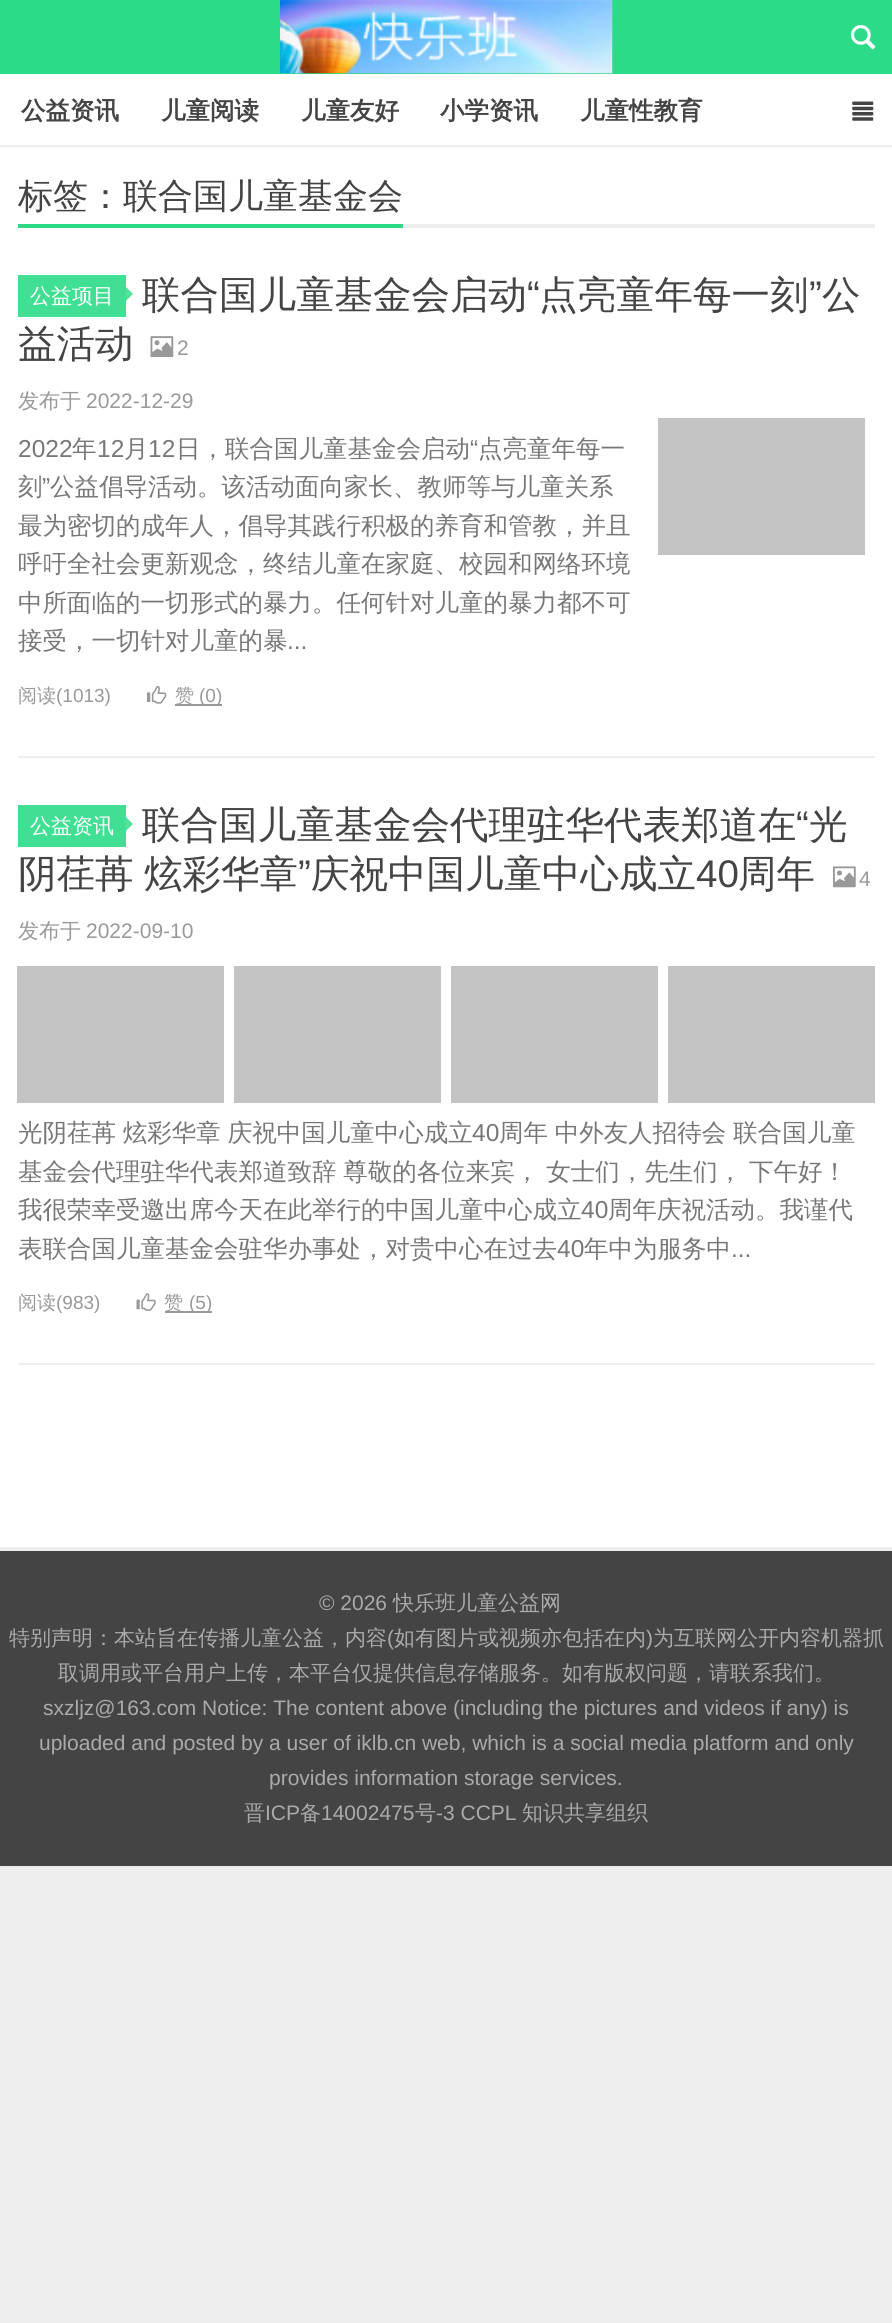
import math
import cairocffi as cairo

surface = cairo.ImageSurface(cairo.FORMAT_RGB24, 892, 2323)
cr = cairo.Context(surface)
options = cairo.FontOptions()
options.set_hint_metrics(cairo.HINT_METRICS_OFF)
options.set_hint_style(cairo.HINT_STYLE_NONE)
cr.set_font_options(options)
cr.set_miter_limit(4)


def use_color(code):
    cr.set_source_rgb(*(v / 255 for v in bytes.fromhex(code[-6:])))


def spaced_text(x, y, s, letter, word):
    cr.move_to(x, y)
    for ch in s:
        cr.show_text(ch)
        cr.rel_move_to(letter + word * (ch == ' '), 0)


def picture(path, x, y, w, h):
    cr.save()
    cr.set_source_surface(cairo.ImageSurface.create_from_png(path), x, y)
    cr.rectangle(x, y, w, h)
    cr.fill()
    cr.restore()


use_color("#eeeeee")
cr.paint()
use_color("#ffffff")
cr.rectangle(0, 147, 892, 1400)
cr.fill()
use_color("#2cdb87")
cr.rectangle(0, 0, 892, 74)
cr.fill()
picture("img1.png", 280, 0, 333, 74)
picture("img2.png", 851, 25, 25, 25)
use_color("#ffffff")
cr.rectangle(0, 74, 892, 71)
cr.fill()
cr.select_font_face("WenQuanYi Zen Hei", cairo.FONT_SLANT_NORMAL, cairo.FONT_WEIGHT_BOLD)
cr.set_font_size(24.5)
use_color("#444444")
cr.move_to(21, 119)
cr.show_text("公益资讯")
cr.move_to(161, 119)
cr.show_text("儿童阅读")
cr.move_to(301, 119)
cr.show_text("儿童友好")
cr.move_to(440, 119)
cr.show_text("小学资讯")
cr.move_to(580, 119)
cr.show_text("儿童性教育")
picture("img3.png", 852, 101, 22, 20)
use_color("#eeeeee")
cr.rectangle(403, 224, 472, 4)
cr.fill()
use_color("#2cdb87")
cr.rectangle(18, 224, 385, 4)
cr.fill()
cr.select_font_face("WenQuanYi Zen Hei Medium")
cr.set_font_size(35)
use_color("#444444")
cr.move_to(18, 208)
cr.show_text("标签：联合国儿童基金会")
use_color("#eeeeee")
cr.rectangle(18, 756, 857, 2)
cr.fill()
use_color("#41df93")
cr.rectangle(18, 275, 108, 42)
cr.fill()
cr.set_font_size(21)
use_color("#ffffff")
cr.move_to(30, 303)
cr.show_text("公益项目")
use_color("#54e29e")
cr.new_path()
cr.move_to(126, 301)
cr.line_to(126, 287)
cr.line_to(133, 294)
cr.close_path()
cr.fill()
cr.set_font_size(38.5)
use_color("#444444")
cr.move_to(142, 308)
cr.show_text("联合国儿童基金会启动")
cr.select_font_face("Liberation Sans")
cr.move_to(527, 308)
cr.show_text("“")
cr.select_font_face("WenQuanYi Zen Hei Medium")
cr.move_to(539, 308)
cr.show_text("点亮童年每一刻")
cr.select_font_face("Liberation Sans")
cr.move_to(809, 308)
cr.show_text("”")
cr.select_font_face("WenQuanYi Zen Hei Medium")
cr.move_to(822, 308)
cr.show_text("公")
cr.move_to(18, 357)
cr.show_text("益活动")
picture("img4.png", 150, 336, 24, 21)
cr.select_font_face("Liberation Sans")
cr.set_font_size(21)
use_color("#999999")
cr.move_to(177, 355)
cr.show_text("2")
cr.select_font_face("WenQuanYi Zen Hei Medium")
cr.move_to(18, 408)
cr.show_text("发布于")
cr.select_font_face("Liberation Sans")
cr.move_to(86, 408)
cr.show_text("2022-12-29")
cr.set_font_size(24.5)
use_color("#777777")
cr.move_to(18, 457)
cr.show_text("2022")
cr.select_font_face("WenQuanYi Zen Hei Medium")
cr.move_to(72, 457)
cr.show_text("年")
cr.select_font_face("Liberation Sans")
cr.move_to(97, 457)
cr.show_text("12")
cr.select_font_face("WenQuanYi Zen Hei Medium")
cr.move_to(124, 457)
cr.show_text("月")
cr.select_font_face("Liberation Sans")
cr.move_to(148, 457)
cr.show_text("12")
cr.select_font_face("WenQuanYi Zen Hei Medium")
cr.move_to(176, 457)
cr.show_text("日，联合国儿童基金会启动")
cr.select_font_face("Liberation Sans")
cr.move_to(470, 457)
cr.show_text("“")
cr.select_font_face("WenQuanYi Zen Hei Medium")
cr.move_to(478, 457)
cr.show_text("点亮童年每一")
cr.move_to(18, 495)
cr.show_text("刻")
cr.select_font_face("Liberation Sans")
cr.move_to(42, 495)
cr.show_text("”")
cr.select_font_face("WenQuanYi Zen Hei Medium")
cr.move_to(50, 495)
cr.show_text("公益倡导活动。该活动面向家长、教师等与儿童关系")
cr.move_to(18, 534)
cr.show_text("最为密切的成年人，倡导其践行积极的养育和管教，并且")
cr.move_to(18, 572)
cr.show_text("呼吁全社会更新观念，终结儿童在家庭、校园和网络环境")
cr.move_to(18, 611)
cr.show_text("中所面临的一切形式的暴力。任何针对儿童的暴力都不可")
cr.move_to(18, 649)
cr.show_text("接受，一切针对儿童的暴")
cr.select_font_face("Liberation Sans")
cr.move_to(287, 649)
cr.show_text("...")
use_color("#c3c3c3")
cr.rectangle(658, 418, 207, 137)
cr.fill()
cr.select_font_face("WenQuanYi Zen Hei Medium")
cr.set_font_size(19)
use_color("#999999")
cr.move_to(18, 702)
cr.show_text("阅读")
cr.select_font_face("Liberation Sans")
cr.move_to(56, 702)
cr.show_text("(1013)")
picture("img5.png", 147, 686, 20, 18)
cr.rectangle(175, 704, 47, 2)
cr.fill()
cr.select_font_face("WenQuanYi Zen Hei Medium")
cr.move_to(175, 702)
cr.show_text("赞")
cr.select_font_face("Liberation Sans")
cr.move_to(199, 702)
cr.show_text("(0)")
use_color("#eeeeee")
cr.rectangle(18, 1363, 857, 2)
cr.fill()
use_color("#41df93")
cr.rectangle(18, 805, 108, 42)
cr.fill()
cr.select_font_face("WenQuanYi Zen Hei Medium")
cr.set_font_size(21)
use_color("#ffffff")
cr.move_to(30, 833)
cr.show_text("公益资讯")
use_color("#54e29e")
cr.new_path()
cr.move_to(126, 831)
cr.line_to(126, 817)
cr.line_to(133, 824)
cr.close_path()
cr.fill()
cr.set_font_size(38.5)
use_color("#444444")
cr.move_to(142, 838)
cr.show_text("联合国儿童基金会代理驻华代表郑道在")
cr.select_font_face("Liberation Sans")
cr.move_to(796, 838)
cr.show_text("“")
cr.select_font_face("WenQuanYi Zen Hei Medium")
cr.move_to(809, 838)
cr.show_text("光")
spaced_text(18, 887, "阴荏苒 炫彩华章", 0, -1)
cr.select_font_face("Liberation Sans")
cr.move_to(298, 887)
cr.show_text("”")
cr.select_font_face("WenQuanYi Zen Hei Medium")
cr.move_to(311, 887)
cr.show_text("庆祝中国儿童中心成立")
cr.select_font_face("Liberation Sans")
cr.move_to(696, 887)
cr.show_text("40")
cr.select_font_face("WenQuanYi Zen Hei Medium")
cr.move_to(738, 887)
cr.show_text("周年")
picture("img6.png", 833, 866, 23, 22)
cr.select_font_face("Liberation Sans")
cr.set_font_size(21)
use_color("#999999")
cr.move_to(859, 886)
cr.show_text("4")
cr.select_font_face("WenQuanYi Zen Hei Medium")
cr.move_to(18, 938)
cr.show_text("发布于")
cr.select_font_face("Liberation Sans")
cr.move_to(86, 938)
cr.show_text("2022-09-10")
use_color("#c3c3c3")
cr.rectangle(17, 966, 207, 137)
cr.fill()
cr.rectangle(234, 966, 207, 137)
cr.fill()
cr.rectangle(451, 966, 207, 137)
cr.fill()
cr.rectangle(668, 966, 207, 137)
cr.fill()
cr.select_font_face("WenQuanYi Zen Hei Medium")
cr.set_font_size(24.5)
use_color("#777777")
spaced_text(18, 1141, "光阴荏苒 炫彩华章 庆祝中国儿童中心成立", 0, -0.5)
cr.select_font_face("Liberation Sans")
cr.move_to(472, 1141)
cr.show_text("40")
cr.select_font_face("WenQuanYi Zen Hei Medium")
spaced_text(499, 1141, "周年 中外友人招待会 联合国儿童", 0, -0.5)
spaced_text(18, 1180, "基金会代理驻华代表郑道致辞 尊敬的各位来宾， 女士们，先生们， 下午好！", 0, -0.5)
cr.move_to(18, 1218)
cr.show_text("我很荣幸受邀出席今天在此举行的中国儿童中心成立")
cr.select_font_face("Liberation Sans")
cr.move_to(581, 1218)
cr.show_text("40")
cr.select_font_face("WenQuanYi Zen Hei Medium")
cr.move_to(608, 1218)
cr.show_text("周年庆祝活动。我谨代")
cr.move_to(18, 1257)
cr.show_text("表联合国儿童基金会驻华办事处，对贵中心在过去")
cr.select_font_face("Liberation Sans")
cr.move_to(557, 1257)
cr.show_text("40")
cr.select_font_face("WenQuanYi Zen Hei Medium")
cr.move_to(584, 1257)
cr.show_text("年中为服务中")
cr.select_font_face("Liberation Sans")
cr.move_to(731, 1257)
cr.show_text("...")
cr.select_font_face("WenQuanYi Zen Hei Medium")
cr.set_font_size(19)
use_color("#999999")
cr.move_to(18, 1309)
cr.show_text("阅读")
cr.select_font_face("Liberation Sans")
cr.move_to(56, 1309)
cr.show_text("(983)")
picture("img7.png", 136, 1293, 20, 18)
cr.rectangle(165, 1311, 29, 2)
cr.fill()
cr.select_font_face("WenQuanYi Zen Hei Medium")
cr.move_to(164, 1309)
cr.show_text("赞")
cr.select_font_face("Liberation Sans")
cr.move_to(189, 1309)
cr.show_text("(5")
cr.rectangle(194, 1311, 18, 2)
cr.fill()
cr.move_to(206, 1309)
cr.show_text(")")
use_color("#444444")
cr.rectangle(0, 1551, 892, 315)
cr.fill()
cr.set_font_size(21)
use_color("#aaaaaa")
cr.move_to(319, 1610)
cr.show_text("© 2026")
cr.select_font_face("WenQuanYi Zen Hei Medium")
cr.move_to(393, 1610)
cr.show_text("快乐班儿童公益网")
cr.move_to(9, 1645)
cr.show_text("特别声明：本站旨在传播儿童公益，内容")
cr.select_font_face("Liberation Sans")
cr.move_to(387, 1645)
cr.show_text("(")
cr.select_font_face("WenQuanYi Zen Hei Medium")
cr.move_to(394, 1645)
cr.show_text("如有图片或视频亦包括在内")
cr.select_font_face("Liberation Sans")
cr.move_to(646, 1645)
cr.show_text(")")
cr.select_font_face("WenQuanYi Zen Hei Medium")
cr.move_to(653, 1645)
cr.show_text("为互联网公开内容机器抓")
cr.move_to(58, 1680)
cr.show_text("取调用或平台用户上传，本平台仅提供信息存储服务。如有版权问题，请联系我们。")
cr.select_font_face("Liberation Sans")
cr.move_to(43, 1715)
cr.show_text("sxzljz@163.com Notice: The content above (including the pictures and videos if any) is")
cr.move_to(39, 1750)
cr.show_text("uploaded and posted by a user of iklb.cn web, which is a social media platform and only")
cr.move_to(269, 1785)
cr.show_text("provides information storage services.")
cr.select_font_face("WenQuanYi Zen Hei Medium")
cr.move_to(244, 1820)
cr.show_text("晋")
cr.select_font_face("Liberation Sans")
cr.move_to(265, 1820)
cr.show_text("ICP")
cr.select_font_face("WenQuanYi Zen Hei Medium")
cr.move_to(300, 1820)
cr.show_text("备")
cr.select_font_face("Liberation Sans")
cr.move_to(321, 1820)
cr.show_text("14002475")
cr.select_font_face("WenQuanYi Zen Hei Medium")
cr.move_to(415, 1820)
cr.show_text("号")
cr.select_font_face("Liberation Sans")
cr.move_to(436, 1820)
cr.show_text("-3 CCPL")
cr.select_font_face("WenQuanYi Zen Hei Medium")
cr.move_to(522, 1820)
cr.show_text("知识共享组织")
surface.write_to_png("result.png")
